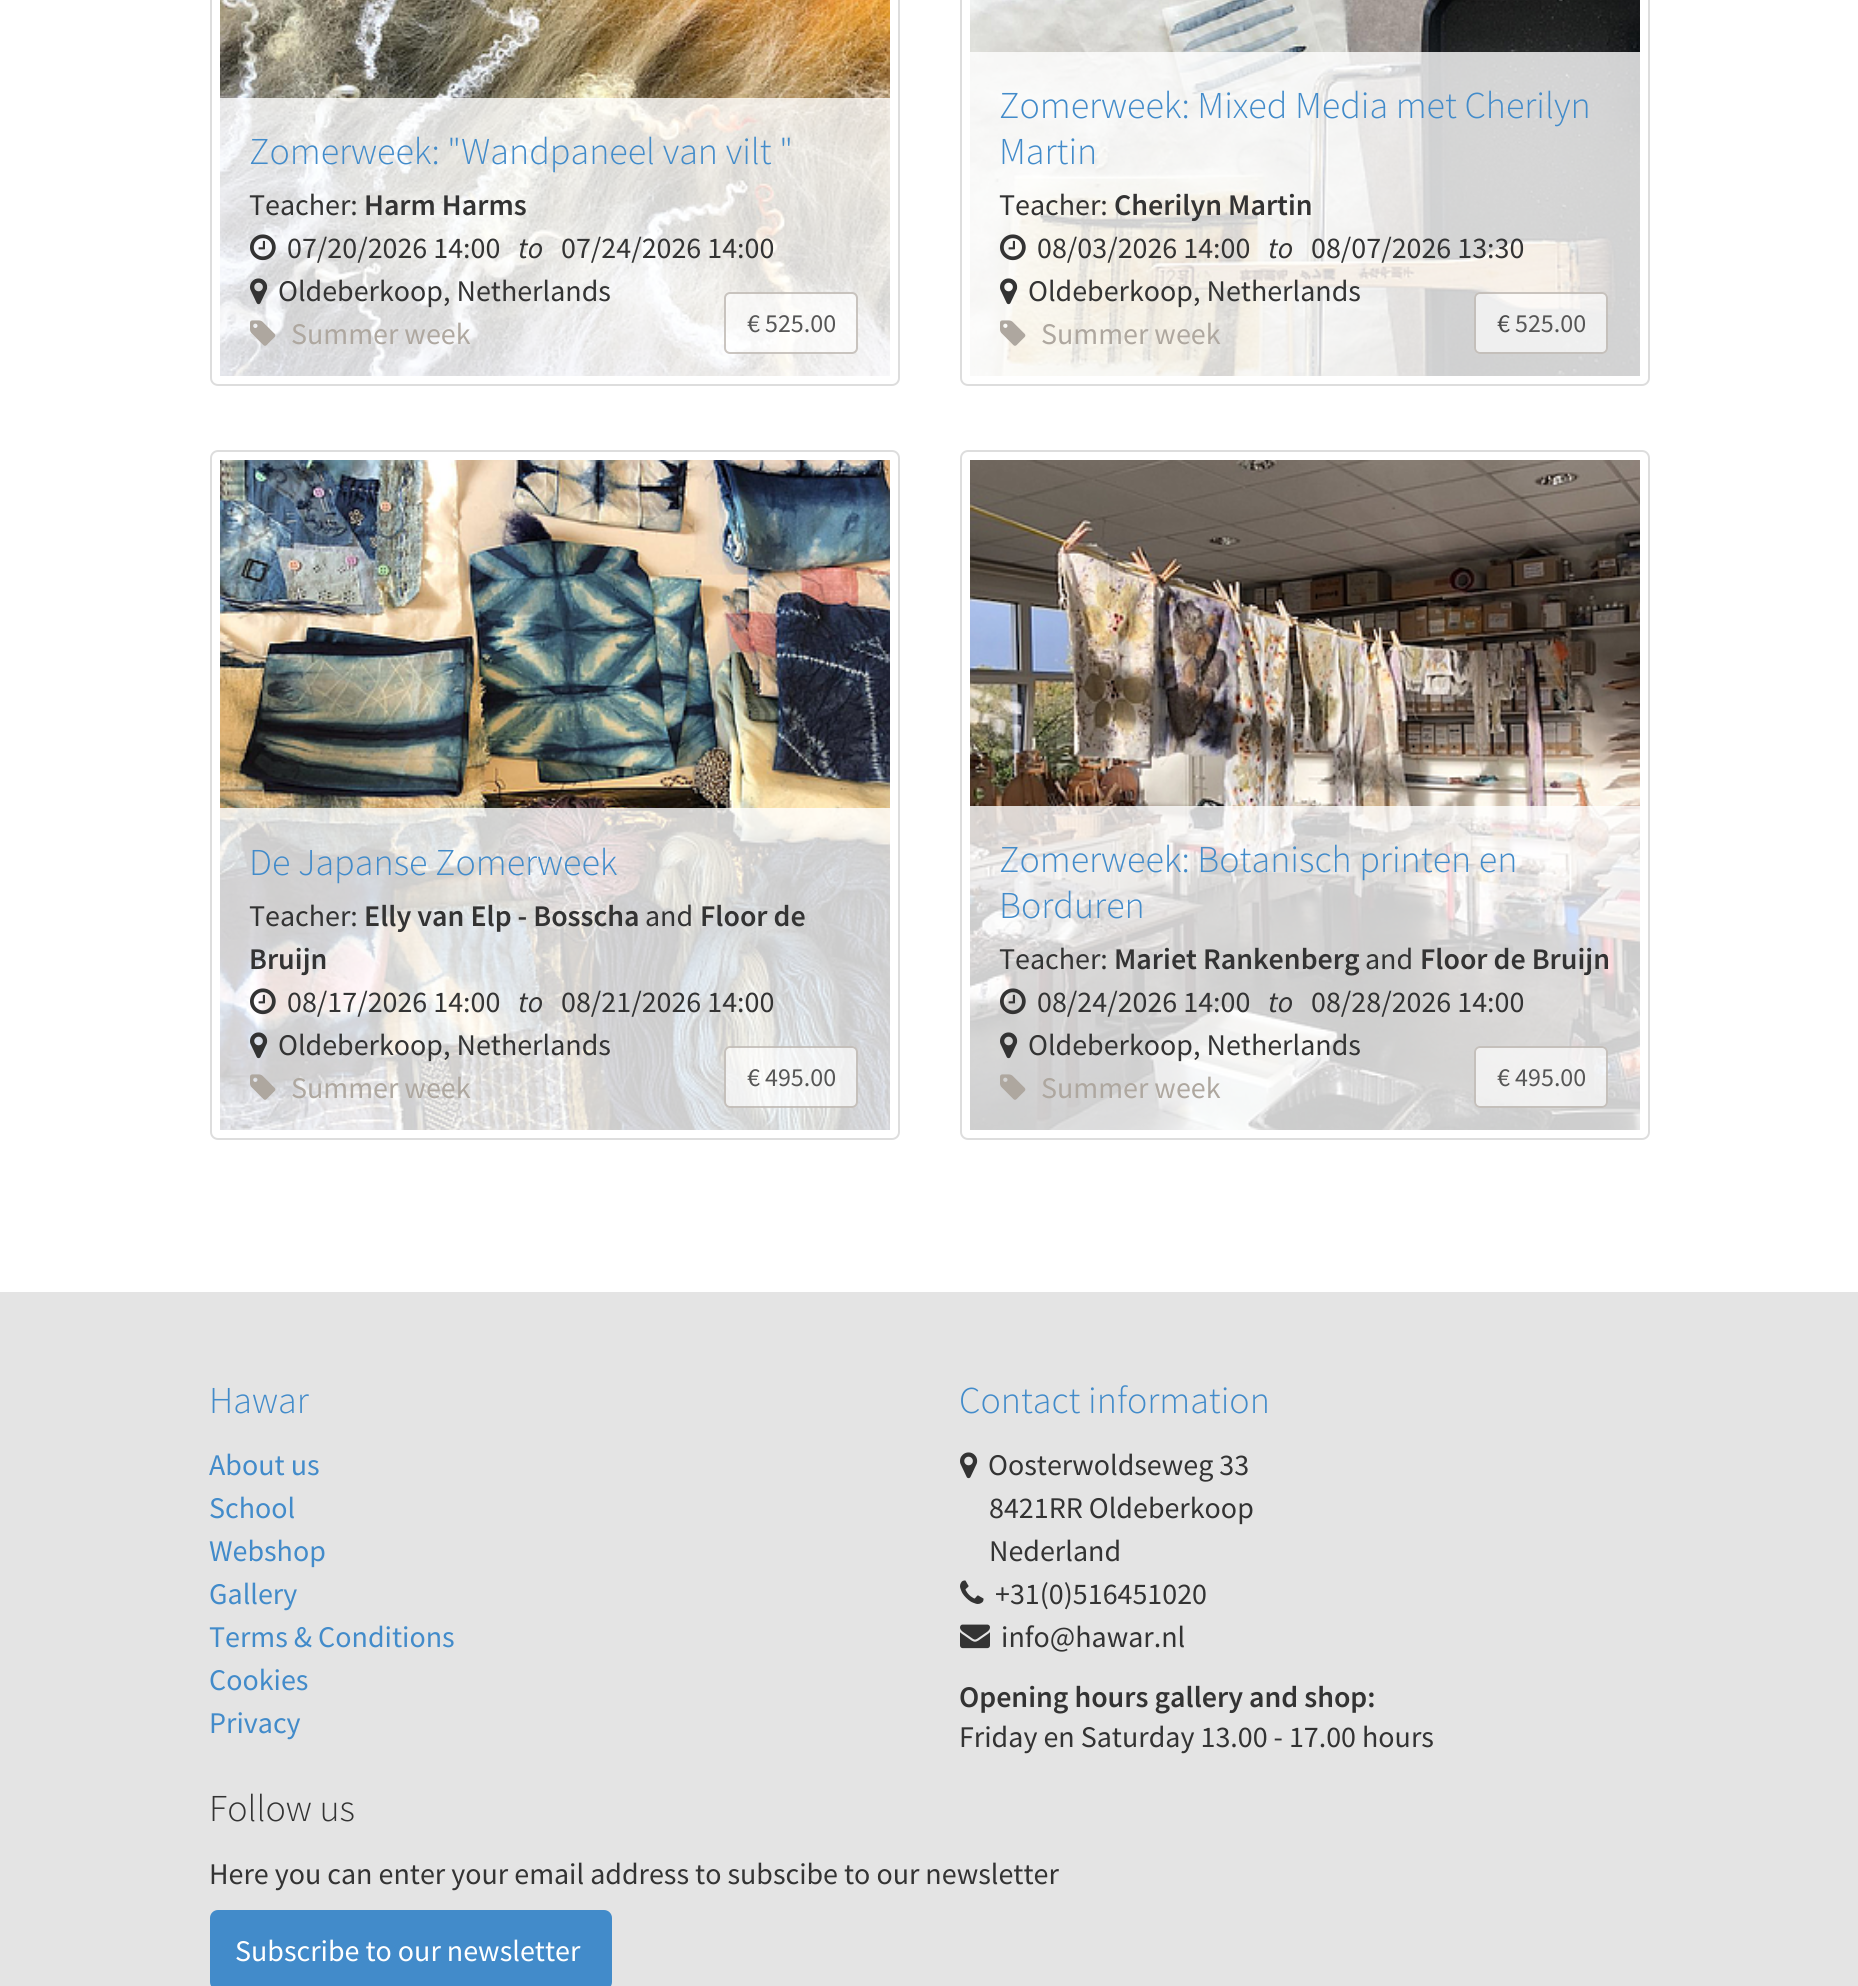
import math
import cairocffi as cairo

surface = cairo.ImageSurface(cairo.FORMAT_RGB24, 1858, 1986)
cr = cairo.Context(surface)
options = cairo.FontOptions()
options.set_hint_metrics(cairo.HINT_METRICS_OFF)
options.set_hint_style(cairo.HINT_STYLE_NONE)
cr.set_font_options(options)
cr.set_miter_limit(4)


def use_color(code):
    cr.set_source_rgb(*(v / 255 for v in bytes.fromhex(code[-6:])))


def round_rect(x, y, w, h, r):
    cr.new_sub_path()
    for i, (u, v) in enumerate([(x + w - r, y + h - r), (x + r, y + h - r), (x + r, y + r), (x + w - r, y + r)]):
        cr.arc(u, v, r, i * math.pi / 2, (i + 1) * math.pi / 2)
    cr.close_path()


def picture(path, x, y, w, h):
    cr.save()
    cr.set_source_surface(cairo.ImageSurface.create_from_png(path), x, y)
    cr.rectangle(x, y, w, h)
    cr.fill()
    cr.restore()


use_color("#ffffff")
cr.paint()
round_rect(211, -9, 688, 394, 7)
use_color("#dddddd")
cr.stroke()
picture("img1.png", 220, 0, 670, 376)
cr.set_source_rgba(1, 1, 1, 0.8)
cr.new_path()
cr.move_to(220, 98)
cr.line_to(898, 98)
cr.line_to(898, 376)
cr.curve_to(898, 380.5, 894.5, 384, 890, 384)
cr.line_to(228, 384)
cr.curve_to(223.5, 384, 220, 380.5, 220, 376)
cr.close_path()
cr.fill()
cr.select_font_face("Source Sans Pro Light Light")
cr.set_font_size(38)
use_color("#428bca")
cr.move_to(249, 164)
cr.show_text("Zomerweek: \"Wandpaneel van vilt \"")
cr.select_font_face("Source Sans Pro")
cr.set_font_size(30)
use_color("#333333")
cr.move_to(249, 215)
cr.show_text("Teacher:")
cr.select_font_face("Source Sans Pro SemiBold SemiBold")
cr.move_to(364, 215)
cr.show_text("Harm Harms")
picture("img2.png", 250, 234, 26, 27)
cr.select_font_face("Source Sans Pro")
cr.move_to(287, 258)
cr.show_text("07/20/2026 14:00")
cr.select_font_face("Source Sans Pro", cairo.FONT_SLANT_ITALIC)
cr.move_to(518, 258)
cr.show_text("to")
cr.select_font_face("Source Sans Pro")
cr.move_to(561, 258)
cr.show_text("07/24/2026 14:00")
picture("img3.png", 250, 278, 18, 27)
cr.move_to(278, 301)
cr.show_text("Oldeberkoop, Netherlands")
picture("img4.png", 250, 320, 26, 26)
use_color("#aea79f")
cr.move_to(291, 344)
cr.show_text("Summer week")
cr.set_source_rgba(1, 1, 1, 0.65)
round_rect(724, 292, 134, 62, 6)
cr.fill()
round_rect(725, 293, 132, 60, 5)
cr.set_source_rgba(0.682, 0.655, 0.624, 0.65)
cr.stroke()
cr.set_font_size(26)
use_color("#565656")
cr.move_to(747, 332)
cr.show_text("€")
cr.move_to(765, 332)
cr.show_text("525.00")
round_rect(961, -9, 688, 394, 7)
use_color("#dddddd")
cr.stroke()
picture("img5.png", 970, 0, 670, 376)
cr.set_source_rgba(1, 1, 1, 0.8)
cr.new_path()
cr.move_to(970, 52)
cr.line_to(1648, 52)
cr.line_to(1648, 376)
cr.curve_to(1648, 380.5, 1644.5, 384, 1640, 384)
cr.line_to(978, 384)
cr.curve_to(973.5, 384, 970, 380.5, 970, 376)
cr.close_path()
cr.fill()
cr.select_font_face("Source Sans Pro Light Light")
cr.set_font_size(38)
use_color("#428bca")
cr.move_to(999, 118)
cr.show_text("Zomerweek: Mixed Media met Cherilyn")
cr.move_to(999, 164)
cr.show_text("Martin")
cr.select_font_face("Source Sans Pro")
cr.set_font_size(30)
use_color("#333333")
cr.move_to(999, 215)
cr.show_text("Teacher:")
cr.select_font_face("Source Sans Pro SemiBold SemiBold")
cr.move_to(1114, 215)
cr.show_text("Cherilyn Martin")
picture("img6.png", 1000, 234, 26, 27)
cr.select_font_face("Source Sans Pro")
cr.move_to(1037, 258)
cr.show_text("08/03/2026 14:00")
cr.select_font_face("Source Sans Pro", cairo.FONT_SLANT_ITALIC)
cr.move_to(1268, 258)
cr.show_text("to")
cr.select_font_face("Source Sans Pro")
cr.move_to(1311, 258)
cr.show_text("08/07/2026 13:30")
picture("img7.png", 1000, 278, 18, 27)
cr.move_to(1028, 301)
cr.show_text("Oldeberkoop, Netherlands")
picture("img8.png", 1000, 320, 26, 26)
use_color("#aea79f")
cr.move_to(1041, 344)
cr.show_text("Summer week")
cr.set_source_rgba(1, 1, 1, 0.65)
round_rect(1474, 292, 134, 62, 6)
cr.fill()
round_rect(1475, 293, 132, 60, 5)
cr.set_source_rgba(0.682, 0.655, 0.624, 0.65)
cr.stroke()
cr.set_font_size(26)
use_color("#494949")
cr.move_to(1497, 332)
cr.show_text("€")
use_color("#565656")
cr.move_to(1515, 332)
cr.show_text("525.00")
round_rect(211, 451, 688, 688, 7)
use_color("#dddddd")
cr.stroke()
picture("img9.png", 220, 460, 670, 670)
cr.set_source_rgba(1, 1, 1, 0.8)
cr.new_path()
cr.move_to(220, 808)
cr.line_to(898, 808)
cr.line_to(898, 1130)
cr.curve_to(898, 1134.5, 894.5, 1138, 890, 1138)
cr.line_to(228, 1138)
cr.curve_to(223.5, 1138, 220, 1134.5, 220, 1130)
cr.close_path()
cr.fill()
cr.select_font_face("Source Sans Pro Light Light")
cr.set_font_size(38)
use_color("#428bca")
cr.move_to(249, 875)
cr.show_text("De Japanse Zomerweek")
cr.select_font_face("Source Sans Pro")
cr.set_font_size(30)
use_color("#333333")
cr.move_to(249, 926)
cr.show_text("Teacher:")
cr.select_font_face("Source Sans Pro SemiBold SemiBold")
cr.move_to(364, 926)
cr.show_text("Elly van Elp - Bosscha")
cr.select_font_face("Source Sans Pro")
cr.move_to(645, 926)
cr.show_text("and")
cr.select_font_face("Source Sans Pro SemiBold SemiBold")
cr.move_to(700, 926)
cr.show_text("Floor de")
cr.move_to(249, 969)
cr.show_text("Bruijn")
picture("img10.png", 250, 988, 26, 27)
cr.select_font_face("Source Sans Pro")
cr.move_to(287, 1012)
cr.show_text("08/17/2026 14:00")
cr.select_font_face("Source Sans Pro", cairo.FONT_SLANT_ITALIC)
cr.move_to(518, 1012)
cr.show_text("to")
cr.select_font_face("Source Sans Pro")
cr.move_to(561, 1012)
cr.show_text("08/21/2026 14:00")
picture("img11.png", 250, 1032, 18, 27)
cr.move_to(278, 1055)
cr.show_text("Oldeberkoop, Netherlands")
picture("img12.png", 250, 1074, 26, 26)
use_color("#aea79f")
cr.move_to(291, 1098)
cr.show_text("Summer week")
cr.set_source_rgba(1, 1, 1, 0.65)
round_rect(724, 1046, 134, 62, 6)
cr.fill()
round_rect(725, 1047, 132, 60, 5)
cr.set_source_rgba(0.682, 0.655, 0.624, 0.65)
cr.stroke()
cr.set_font_size(26)
use_color("#565656")
cr.move_to(747, 1086)
cr.show_text("€")
cr.move_to(765, 1086)
cr.show_text("495.00")
round_rect(961, 451, 688, 688, 7)
use_color("#dddddd")
cr.stroke()
picture("img13.png", 970, 460, 670, 670)
cr.set_source_rgba(1, 1, 1, 0.8)
cr.new_path()
cr.move_to(970, 806)
cr.line_to(1648, 806)
cr.line_to(1648, 1130)
cr.curve_to(1648, 1134.5, 1644.5, 1138, 1640, 1138)
cr.line_to(978, 1138)
cr.curve_to(973.5, 1138, 970, 1134.5, 970, 1130)
cr.close_path()
cr.fill()
cr.select_font_face("Source Sans Pro Light Light")
cr.set_font_size(38)
use_color("#428bca")
cr.move_to(999, 872)
cr.show_text("Zomerweek: Botanisch printen en")
cr.move_to(999, 918)
cr.show_text("Borduren")
cr.select_font_face("Source Sans Pro")
cr.set_font_size(30)
use_color("#333333")
cr.move_to(999, 969)
cr.show_text("Teacher:")
cr.select_font_face("Source Sans Pro SemiBold SemiBold")
cr.move_to(1114, 969)
cr.show_text("Mariet Rankenberg")
cr.select_font_face("Source Sans Pro")
cr.move_to(1365, 969)
cr.show_text("and")
cr.select_font_face("Source Sans Pro SemiBold SemiBold")
cr.move_to(1420, 969)
cr.show_text("Floor de Bruijn")
picture("img14.png", 1000, 988, 26, 27)
cr.select_font_face("Source Sans Pro")
cr.move_to(1037, 1012)
cr.show_text("08/24/2026 14:00")
cr.select_font_face("Source Sans Pro", cairo.FONT_SLANT_ITALIC)
cr.move_to(1268, 1012)
cr.show_text("to")
cr.select_font_face("Source Sans Pro")
cr.move_to(1311, 1012)
cr.show_text("08/28/2026 14:00")
picture("img15.png", 1000, 1032, 18, 27)
cr.move_to(1028, 1055)
cr.show_text("Oldeberkoop, Netherlands")
picture("img16.png", 1000, 1074, 26, 26)
use_color("#aea79f")
cr.move_to(1041, 1098)
cr.show_text("Summer week")
cr.set_source_rgba(1, 1, 1, 0.65)
round_rect(1474, 1046, 134, 62, 6)
cr.fill()
round_rect(1475, 1047, 132, 60, 5)
cr.set_source_rgba(0.682, 0.655, 0.624, 0.65)
cr.stroke()
cr.set_font_size(26)
use_color("#565656")
cr.move_to(1497, 1086)
cr.show_text("€ 495.00")
use_color("#e4e4e4")
cr.rectangle(0, 1292, 1858, 694)
cr.fill()
cr.select_font_face("Source Sans Pro Light Light")
cr.set_font_size(38)
use_color("#428bca")
cr.move_to(209, 1413)
cr.show_text("Hawar")
cr.select_font_face("Source Sans Pro")
cr.set_font_size(30)
cr.move_to(209, 1475)
cr.show_text("About us")
cr.move_to(209, 1518)
cr.show_text("School")
cr.move_to(209, 1561)
cr.show_text("Webshop")
cr.move_to(209, 1604)
cr.show_text("Gallery")
cr.move_to(209, 1647)
cr.show_text("Terms & Conditions")
cr.move_to(209, 1690)
cr.show_text("Cookies")
cr.move_to(209, 1733)
cr.show_text("Privacy")
cr.select_font_face("Source Sans Pro Light Light")
cr.set_font_size(38)
cr.move_to(959, 1413)
cr.show_text("Contact information")
picture("img17.png", 960, 1452, 18, 27)
cr.select_font_face("Source Sans Pro")
cr.set_font_size(30)
use_color("#333333")
cr.move_to(988, 1475)
cr.show_text("Oosterwoldseweg 33")
cr.move_to(989, 1518)
cr.show_text("8421RR Oldeberkoop")
cr.move_to(989, 1561)
cr.show_text("Nederland")
picture("img18.png", 960, 1580, 24, 24)
cr.move_to(995, 1604)
cr.show_text("+31(0)516451020")
picture("img19.png", 960, 1624, 30, 25)
cr.move_to(1001, 1647)
cr.show_text("info@hawar.nl")
cr.select_font_face("Source Sans Pro SemiBold SemiBold")
cr.move_to(959, 1707)
cr.show_text("Opening hours gallery and shop:")
cr.select_font_face("Source Sans Pro")
cr.move_to(959, 1747)
cr.show_text("Friday en Saturday 13.00 - 17.00 hours")
cr.select_font_face("Source Sans Pro Light Light")
cr.set_font_size(38)
cr.move_to(209, 1821)
cr.show_text("Follow us")
cr.select_font_face("Source Sans Pro")
cr.set_font_size(30)
cr.move_to(209, 1884)
cr.show_text("Here you can enter your email address to subscibe to our newsletter")
use_color("#428bca")
round_rect(211, 1911, 400, 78, 7)
cr.fill_preserve()
cr.stroke()
use_color("#ffffff")
cr.move_to(235, 1961)
cr.show_text("Subscribe to our newsletter")
surface.write_to_png("result.png")
